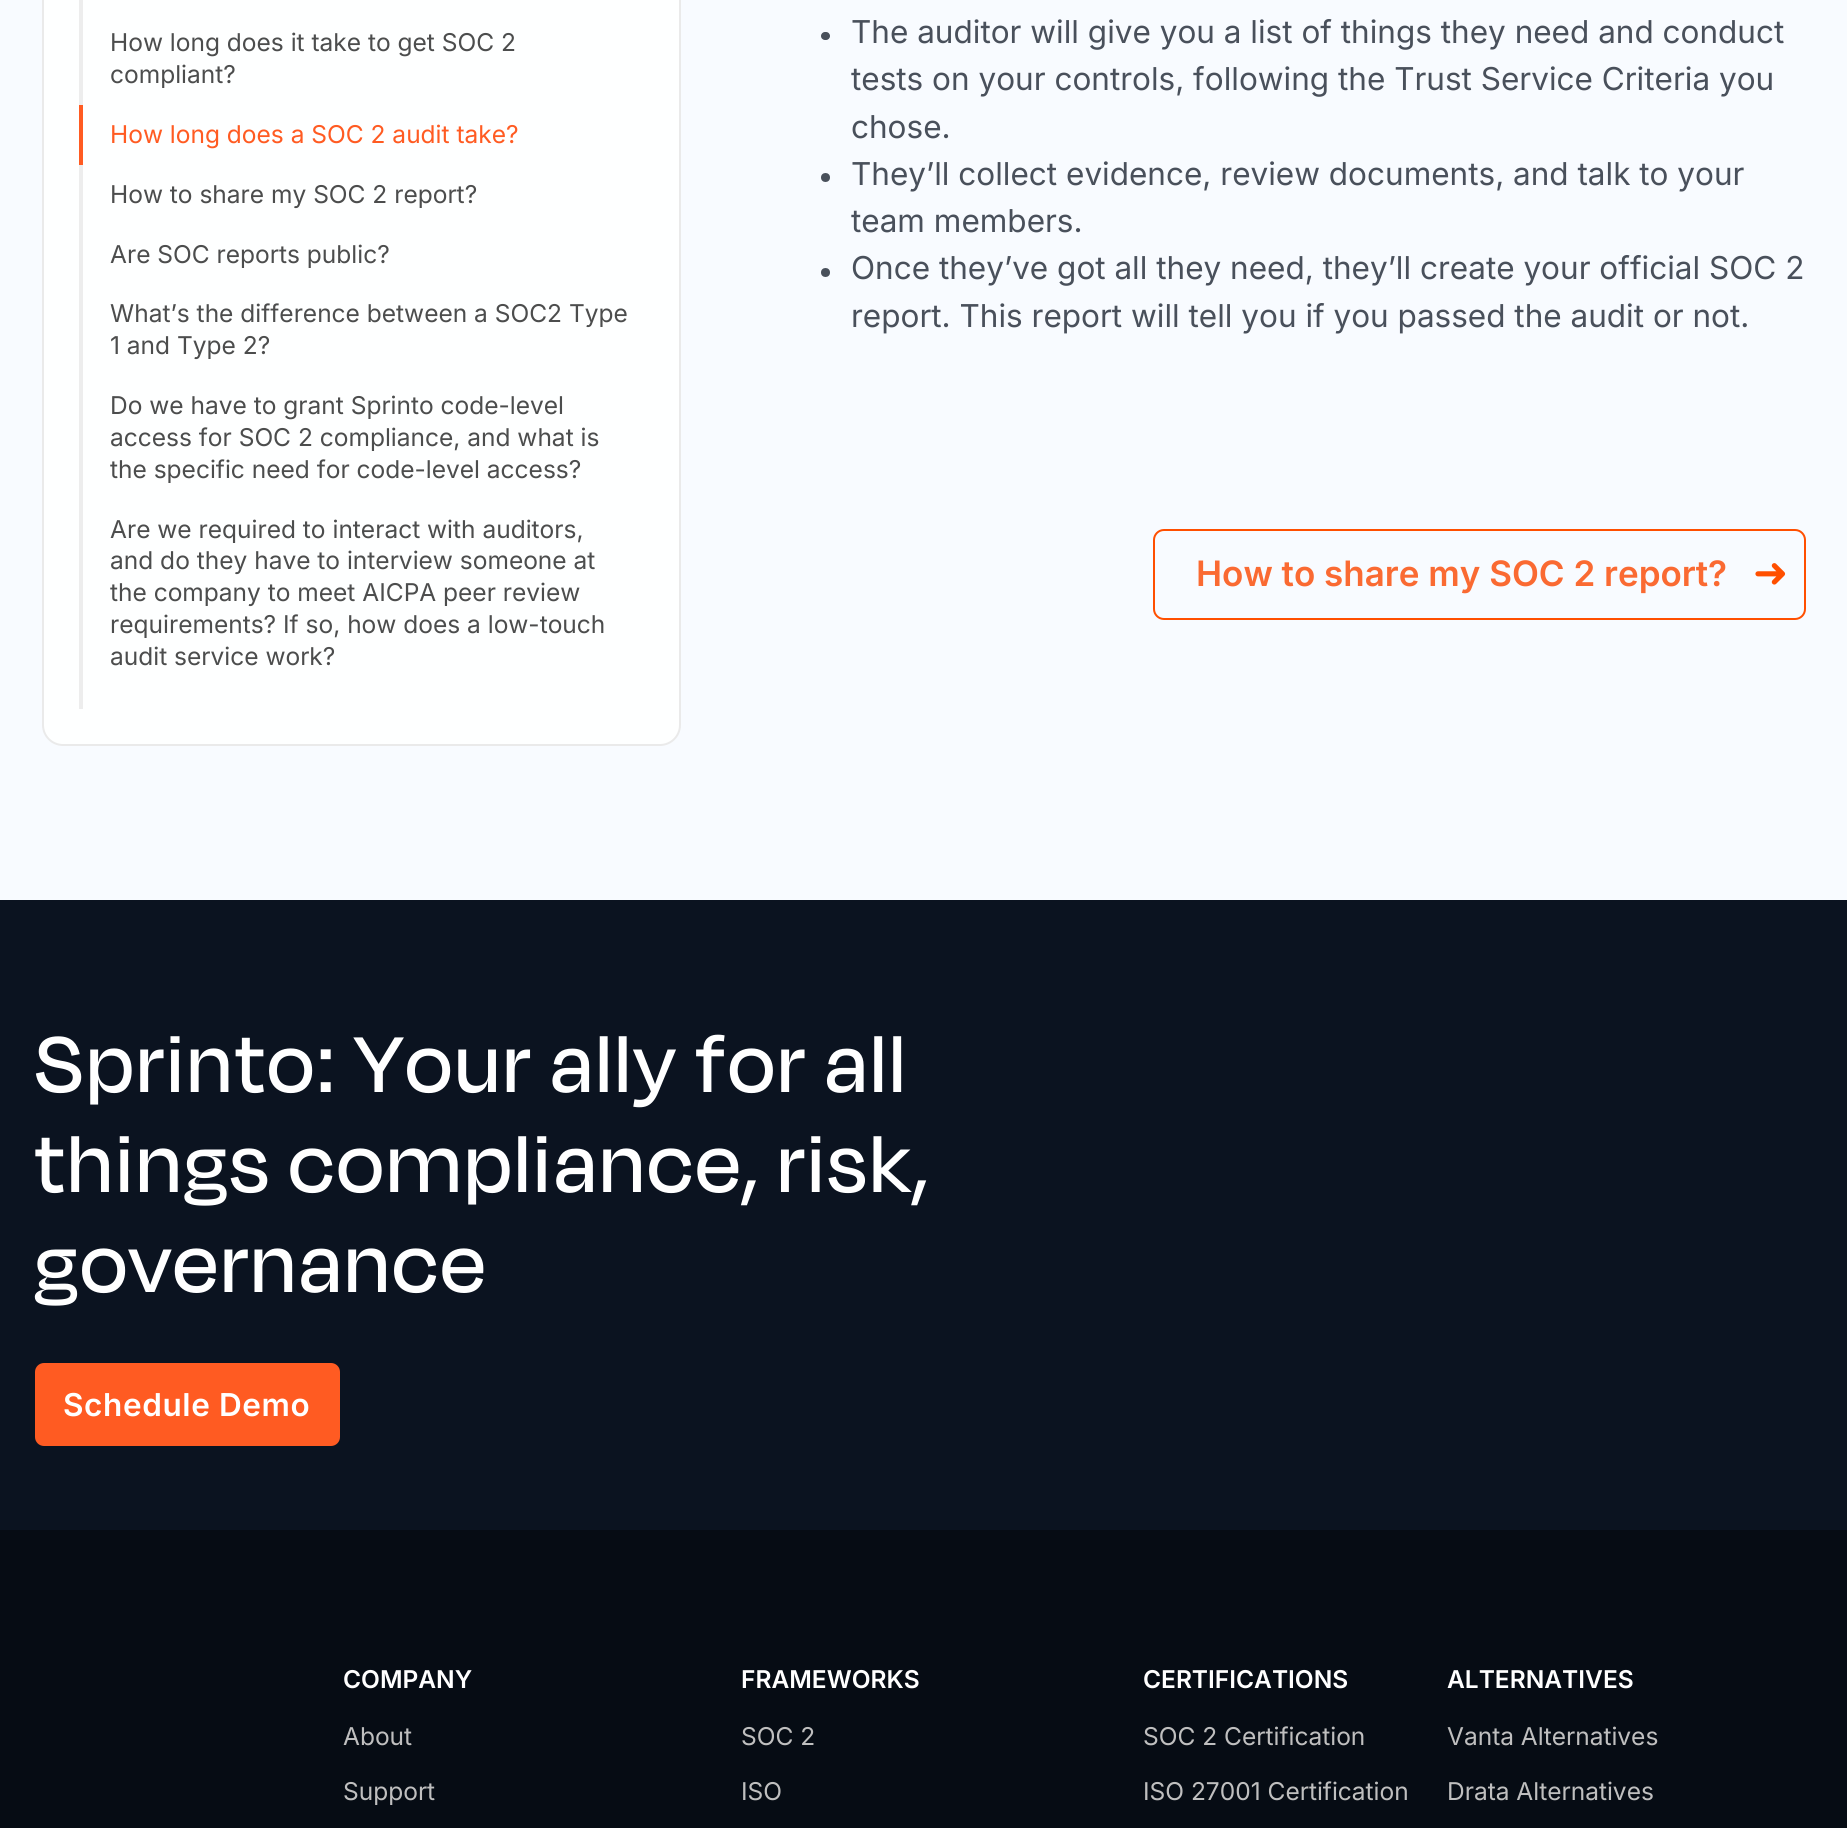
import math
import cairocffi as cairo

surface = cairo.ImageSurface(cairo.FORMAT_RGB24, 1847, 1828)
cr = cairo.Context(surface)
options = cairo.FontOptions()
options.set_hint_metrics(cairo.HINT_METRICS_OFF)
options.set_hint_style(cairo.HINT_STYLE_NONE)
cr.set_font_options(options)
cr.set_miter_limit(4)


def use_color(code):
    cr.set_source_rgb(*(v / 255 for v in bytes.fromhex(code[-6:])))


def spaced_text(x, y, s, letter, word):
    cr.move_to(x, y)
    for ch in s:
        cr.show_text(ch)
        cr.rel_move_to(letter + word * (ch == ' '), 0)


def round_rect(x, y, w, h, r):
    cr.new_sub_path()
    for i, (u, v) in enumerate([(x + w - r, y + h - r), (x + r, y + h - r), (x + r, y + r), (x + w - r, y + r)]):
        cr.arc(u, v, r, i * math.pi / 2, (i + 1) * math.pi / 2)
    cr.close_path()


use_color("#f8fbff")
cr.paint()
use_color("#feffff")
round_rect(43, -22, 637, 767, 20)
cr.fill_preserve()
use_color("#eaeaea")
cr.stroke()
use_color("#ededed")
cr.rectangle(79, 0, 4, 105)
cr.fill()
cr.select_font_face("Inter")
cr.set_font_size(24.5)
use_color("#4c4d4d")
cr.move_to(110, 51)
cr.show_text("How long does it take to get SOC 2")
cr.move_to(110, 83)
cr.show_text("compliant?")
use_color("#ff5b22")
cr.rectangle(79, 105, 4, 60)
cr.fill()
cr.move_to(110, 143)
cr.show_text("How long does a SOC 2 audit take?")
use_color("#ededed")
cr.rectangle(79, 165, 4, 544)
cr.fill()
use_color("#4c4d4d")
cr.move_to(110, 203)
cr.show_text("How to share my SOC 2 report?")
cr.move_to(110, 263)
cr.show_text("Are SOC reports public?")
cr.move_to(110, 322)
cr.show_text("What’s the difference between a SOC2 Type")
cr.move_to(110, 354)
cr.show_text("1 and Type 2?")
cr.move_to(110, 414)
cr.show_text("Do we have to grant Sprinto code-level")
cr.move_to(110, 446)
cr.show_text("access for SOC 2 compliance, and what is")
cr.move_to(110, 478)
cr.show_text("the specific need for code-level access?")
cr.move_to(110, 538)
cr.show_text("Are we required to interact with auditors,")
cr.move_to(110, 569)
cr.show_text("and do they have to interview someone at")
cr.move_to(110, 601)
cr.show_text("the company to meet AICPA peer review")
cr.move_to(110, 633)
cr.show_text("requirements? If so, how does a low-touch")
cr.move_to(110, 665)
cr.show_text("audit service work?")
use_color("#49505b")
round_rect(821, 32, 9, 8, 4)
cr.fill()
cr.set_font_size(31.5)
cr.move_to(851, 43)
cr.show_text("The auditor will give you a list of things they need and conduct")
cr.move_to(851, 90)
cr.show_text("tests on your controls, following the Trust Service Criteria you")
cr.move_to(851, 138)
cr.show_text("chose.")
cr.new_path()
cr.arc(825.5, 177.5, 4.5, 0, 2 * math.pi)
cr.fill()
cr.move_to(851, 185)
cr.show_text("They’ll collect evidence, review documents, and talk to your")
cr.move_to(851, 232)
cr.show_text("team members.")
cr.new_path()
cr.arc(825.5, 272.5, 4.5, 0, 2 * math.pi)
cr.fill()
cr.move_to(851, 279)
cr.show_text("Once they’ve got all they need, they’ll create your official SOC 2")
cr.move_to(851, 327)
cr.show_text("report. This report will tell you if you passed the audit or not.")
round_rect(1154, 530, 651, 89, 10)
use_color("#ff4f00")
cr.stroke()
cr.select_font_face("Inter SemiBold")
cr.set_font_size(35)
use_color("#fa6a32")
cr.move_to(1196, 586)
cr.show_text("How to share my SOC 2 report?")
cr.select_font_face("DejaVu Sans")
cr.set_font_size(42)
use_color("#ff4f00")
cr.move_to(1753, 587)
cr.show_text("➜")
use_color("#0b1320")
cr.rectangle(0, 900, 1847, 630)
cr.fill()
cr.select_font_face("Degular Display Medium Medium")
cr.set_font_size(91)
use_color("#ffffff")
spaced_text(35, 1092, "Sprinto: Your ally for all", 3.5, 0)
spaced_text(35, 1192, "things compliance, risk,", 3.5, 0)
spaced_text(35, 1292, "governance", 3.5, 0)
use_color("#ff5b22")
round_rect(35, 1363, 305, 83, 9)
cr.fill()
cr.select_font_face("Inter SemiBold")
cr.set_font_size(31.5)
use_color("#ffffff")
spaced_text(63, 1416, "Schedule Demo", 0.6, 0)
use_color("#060c14")
cr.rectangle(0, 1530, 1847, 298)
cr.fill()
cr.set_font_size(24.5)
use_color("#ffffff")
cr.move_to(343, 1688)
cr.show_text("COMPANY")
cr.select_font_face("Inter")
use_color("#bfbfbf")
cr.move_to(343, 1745)
cr.show_text("About")
cr.move_to(343, 1800)
cr.show_text("Support")
cr.select_font_face("Inter SemiBold")
use_color("#ffffff")
cr.move_to(741, 1688)
cr.show_text("FRAMEWORKS")
cr.select_font_face("Inter")
use_color("#bfbfbf")
cr.move_to(741, 1745)
cr.show_text("SOC 2")
cr.move_to(741, 1800)
cr.show_text("ISO")
cr.select_font_face("Inter SemiBold")
use_color("#ffffff")
cr.move_to(1143, 1688)
cr.show_text("CERTIFICATIONS")
cr.select_font_face("Inter")
use_color("#bfbfbf")
cr.move_to(1143, 1745)
cr.show_text("SOC 2 Certification")
cr.move_to(1143, 1800)
cr.show_text("ISO 27001 Certification")
cr.select_font_face("Inter SemiBold")
use_color("#ffffff")
cr.move_to(1447, 1688)
cr.show_text("ALTERNATIVES")
cr.select_font_face("Inter")
use_color("#bfbfbf")
cr.move_to(1447, 1745)
cr.show_text("Vanta Alternatives")
cr.move_to(1447, 1800)
cr.show_text("Drata Alternatives")
surface.write_to_png("result.png")
